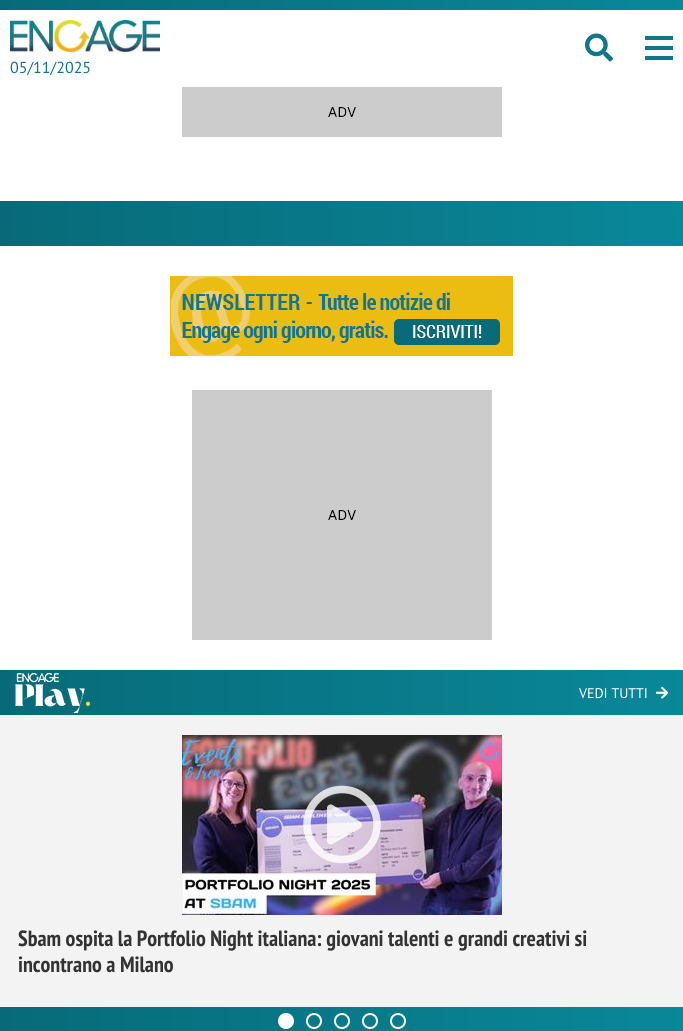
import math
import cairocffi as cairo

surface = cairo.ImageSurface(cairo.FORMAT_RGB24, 683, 1031)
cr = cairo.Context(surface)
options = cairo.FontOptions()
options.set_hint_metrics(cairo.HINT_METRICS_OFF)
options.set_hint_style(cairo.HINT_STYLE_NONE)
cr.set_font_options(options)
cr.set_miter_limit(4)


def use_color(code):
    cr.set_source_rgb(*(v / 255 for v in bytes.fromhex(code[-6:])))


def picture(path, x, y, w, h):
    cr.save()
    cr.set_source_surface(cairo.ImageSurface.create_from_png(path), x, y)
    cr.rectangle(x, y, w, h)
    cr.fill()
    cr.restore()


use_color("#ffffff")
cr.paint()
gradient = cairo.LinearGradient(0, 5, 683, 5)
gradient.add_color_stop_rgba(0, 0.031, 0.416, 0.471, 1)
gradient.add_color_stop_rgba(1, 0.035, 0.533, 0.604, 1)
cr.set_source(gradient)
cr.rectangle(0, 0, 683, 10)
cr.fill()
picture("img1.png", 585, 33, 28, 29)
use_color("#10778b")
cr.rectangle(645, 46, 28, 4)
cr.fill()
cr.rectangle(645, 36, 28, 4)
cr.fill()
cr.rectangle(645, 56, 28, 4)
cr.fill()
picture("img2.png", 10, 20, 150, 32)
cr.select_font_face("PT Sans")
cr.set_font_size(16)
cr.move_to(10, 73)
cr.show_text("05/11/2025")
use_color("#cccccc")
cr.rectangle(182, 87, 320, 50)
cr.fill()
picture("img3.png", 328, 107, 28, 10)
gradient = cairo.LinearGradient(0, 224, 683, 223)
gradient.add_color_stop_rgba(0, 0.031, 0.416, 0.471, 1)
gradient.add_color_stop_rgba(1, 0.035, 0.533, 0.604, 1)
cr.set_source(gradient)
cr.rectangle(0, 201, 683, 45)
cr.fill()
picture("img4.png", 170, 276, 343, 80)
use_color("#cccccc")
cr.rectangle(192, 390, 300, 250)
cr.fill()
picture("img3.png", 328, 510, 28, 10)
use_color("#f3f3f3")
cr.rectangle(0, 715, 683, 292)
cr.fill()
gradient = cairo.LinearGradient(0, 693, 683, 693)
gradient.add_color_stop_rgba(0, 0.031, 0.416, 0.471, 1)
gradient.add_color_stop_rgba(1, 0.035, 0.533, 0.604, 1)
cr.set_source(gradient)
cr.rectangle(0, 670, 683, 45)
cr.fill()
picture("img5.png", 15, 673, 75, 40)
cr.set_font_size(14)
use_color("#ffffff")
cr.move_to(579, 698)
cr.show_text("VEDI TUTTI")
picture("img6.png", 656, 686, 13, 13)
picture("img7.png", 182, 735, 320, 180)
picture("img8.png", 303, 785, 78, 79)
cr.select_font_face("PT Sans Narrow", cairo.FONT_SLANT_NORMAL, cairo.FONT_WEIGHT_BOLD)
cr.set_font_size(22)
use_color("#333333")
cr.move_to(18, 946)
cr.show_text("Sbam ospita la Portfolio Night italiana: giovani talenti e grandi creativi si")
cr.move_to(18, 972)
cr.show_text("incontrano a Milano")
gradient = cairo.LinearGradient(0, 1021, 683, 1021)
gradient.add_color_stop_rgba(0, 0.031, 0.416, 0.471, 1)
gradient.add_color_stop_rgba(1, 0.035, 0.533, 0.604, 1)
cr.set_source(gradient)
cr.rectangle(0, 1007, 683, 24)
cr.fill()
use_color("#ffffff")
cr.arc(286, 1021, 7, 0, 2 * math.pi)
cr.fill_preserve()
cr.stroke()
cr.arc(314, 1021, 7, 0, 2 * math.pi)
cr.stroke()
cr.arc(342, 1021, 7, 0, 2 * math.pi)
cr.stroke()
cr.arc(370, 1021, 7, 0, 2 * math.pi)
cr.stroke()
cr.arc(398, 1021, 7, 0, 2 * math.pi)
cr.stroke()
surface.write_to_png("result.png")
